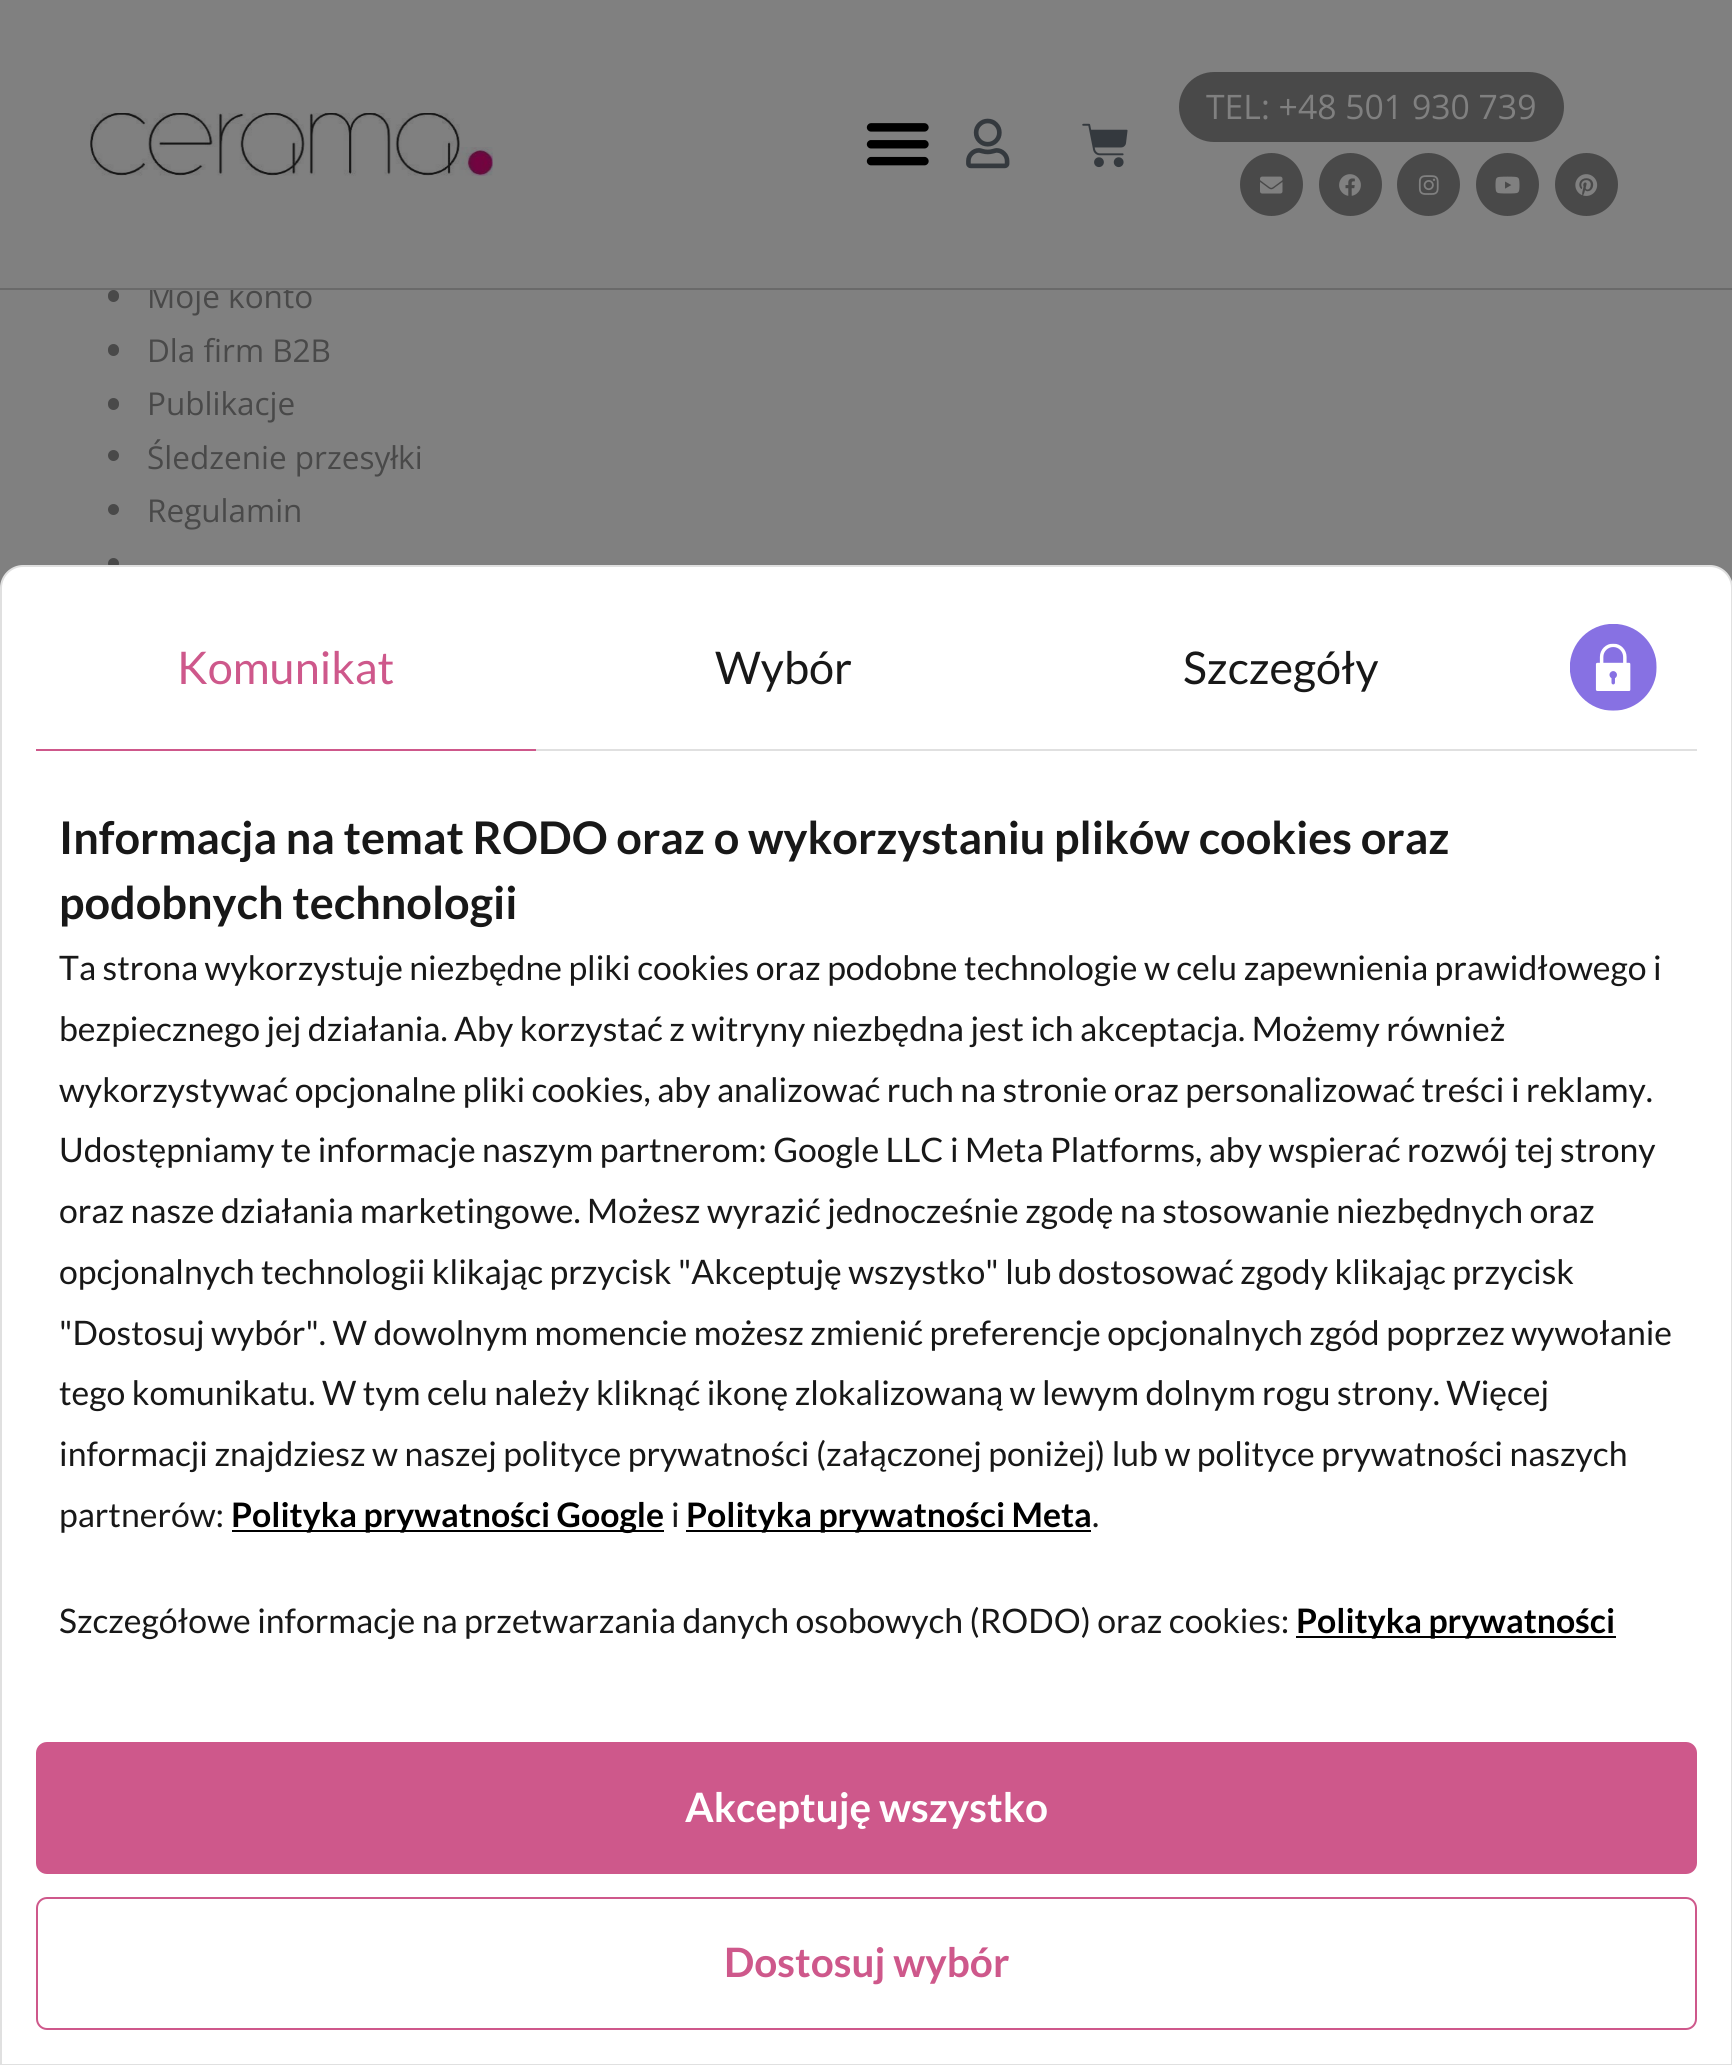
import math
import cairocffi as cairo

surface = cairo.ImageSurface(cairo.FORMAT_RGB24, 1732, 2065)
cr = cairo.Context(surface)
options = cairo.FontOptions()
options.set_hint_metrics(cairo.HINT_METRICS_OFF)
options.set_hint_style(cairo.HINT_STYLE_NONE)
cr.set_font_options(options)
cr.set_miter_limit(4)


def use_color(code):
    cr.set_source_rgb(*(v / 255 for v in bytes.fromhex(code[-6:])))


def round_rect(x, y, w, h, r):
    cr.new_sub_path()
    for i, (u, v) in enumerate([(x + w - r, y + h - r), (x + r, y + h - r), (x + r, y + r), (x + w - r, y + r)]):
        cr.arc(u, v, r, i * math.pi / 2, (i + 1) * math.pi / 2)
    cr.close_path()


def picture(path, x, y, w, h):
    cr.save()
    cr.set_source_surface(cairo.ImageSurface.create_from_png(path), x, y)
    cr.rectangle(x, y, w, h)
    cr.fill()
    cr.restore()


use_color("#808080")
cr.paint()
cr.select_font_face("Open Sans")
cr.set_font_size(31.5)
use_color("#494949")
cr.move_to(147, 308)
cr.show_text("Moje konto")
use_color("#808080")
cr.rectangle(150, 284, 139, 4)
cr.fill()
use_color("#6a6a6a")
cr.rectangle(0, 288, 1732, 2)
cr.fill()
use_color("#494949")
round_rect(1179, 72, 385, 70, 35)
cr.fill()
cr.set_font_size(33.75)
use_color("#808080")
cr.move_to(1206, 119)
cr.show_text("TEL: +48 501 930 739")
use_color("#494949")
cr.new_path()
cr.arc(1271.5, 184.5, 31.5, 0, 2 * math.pi)
cr.fill()
picture("img1.png", 1260, 176, 23, 18)
cr.arc(1350.5, 184.5, 31.5, 0, 2 * math.pi)
cr.fill()
picture("img2.png", 1339, 174, 22, 22)
cr.arc(1428.5, 184.5, 31.5, 0, 2 * math.pi)
cr.fill()
picture("img3.png", 1418, 175, 21, 20)
cr.arc(1507.5, 184.5, 31.5, 0, 2 * math.pi)
cr.fill()
picture("img4.png", 1495, 176, 25, 18)
cr.arc(1586.5, 184.5, 31.5, 0, 2 * math.pi)
cr.fill()
picture("img5.png", 1575, 174, 23, 22)
picture("img6.png", 90, 113, 403, 63)
picture("img7.png", 866, 123, 63, 43)
picture("img8.png", 966, 118, 44, 51)
picture("img9.png", 1082, 123, 46, 45)
round_rect(108, 290, 11, 12, 5.5)
cr.fill()
round_rect(108, 344, 11, 12, 5.5)
cr.fill()
cr.set_font_size(31.5)
cr.move_to(147, 362)
cr.show_text("Dla firm B2B")
round_rect(108, 398, 11, 12, 5.5)
cr.fill()
cr.move_to(147, 415)
cr.show_text("Publikacje")
cr.new_path()
cr.arc(113.5, 455.5, 5.5, 0, 2 * math.pi)
cr.fill()
cr.move_to(147, 469)
cr.show_text("Śledzenie przesyłki")
cr.new_path()
cr.arc(113.5, 509.5, 5.5, 0, 2 * math.pi)
cr.fill()
cr.move_to(147, 522)
cr.show_text("Regulamin")
cr.new_path()
cr.arc(113.5, 563.5, 5.5, 0, 2 * math.pi)
cr.fill()
use_color("#ffffff")
cr.new_path()
cr.move_to(23, 566)
cr.line_to(1710, 566)
cr.curve_to(1722, 566, 1732, 576, 1732, 588)
cr.line_to(1732, 2065)
cr.line_to(1, 2065)
cr.line_to(1, 588)
cr.curve_to(1, 576, 11, 566, 23, 566)
cr.close_path()
cr.fill_preserve()
use_color("#e0e0e0")
cr.stroke()
use_color("#ce588b")
cr.rectangle(36, 749, 500, 2)
cr.fill()
cr.select_font_face("Lato")
cr.set_font_size(45)
cr.move_to(177, 684)
cr.show_text("Komunikat")
use_color("#e0e0e0")
cr.rectangle(536, 749, 1161, 2)
cr.fill()
use_color("#181818")
cr.move_to(715, 684)
cr.show_text("Wybór")
cr.move_to(1183, 684)
cr.show_text("Szczegóły")
picture("img10.png", 1570, 624, 87, 87)
cr.select_font_face("Lato", cairo.FONT_SLANT_NORMAL, cairo.FONT_WEIGHT_BOLD)
cr.move_to(59, 854)
cr.show_text("Informacja na temat RODO oraz o wykorzystaniu plików cookies oraz")
cr.move_to(59, 919)
cr.show_text("podobnych technologii")
cr.select_font_face("Lato")
cr.set_font_size(33.75)
cr.move_to(59, 980)
cr.show_text("Ta strona wykorzystuje niezbędne pliki cookies oraz podobne technologie w celu zapewnienia prawidłowego i")
cr.move_to(59, 1041)
cr.show_text("bezpiecznego jej działania. Aby korzystać z witryny niezbędna jest ich akceptacja. Możemy również")
cr.move_to(59, 1102)
cr.show_text("wykorzystywać opcjonalne pliki cookies, aby analizować ruch na stronie oraz personalizować treści i reklamy.")
cr.move_to(59, 1162)
cr.show_text("Udostępniamy te informacje naszym partnerom: Google LLC i Meta Platforms, aby wspierać rozwój tej strony")
cr.move_to(59, 1223)
cr.show_text("oraz nasze działania marketingowe. Możesz wyrazić jednocześnie zgodę na stosowanie niezbędnych oraz")
cr.move_to(59, 1284)
cr.show_text("opcjonalnych technologii klikając przycisk \"Akceptuję wszystko\" lub dostosować zgody klikając przycisk")
cr.move_to(59, 1345)
cr.show_text("\"Dostosuj wybór\". W dowolnym momencie możesz zmienić preferencje opcjonalnych zgód poprzez wywołanie")
cr.move_to(59, 1405)
cr.show_text("tego komunikatu. W tym celu należy kliknąć ikonę zlokalizowaną w lewym dolnym rogu strony. Więcej")
cr.move_to(59, 1466)
cr.show_text("informacji znajdziesz w naszej polityce prywatności (załączonej poniżej) lub w polityce prywatności naszych")
cr.move_to(59, 1527)
cr.show_text("partnerów:")
use_color("#000000")
cr.rectangle(232, 1530, 432, 2)
cr.fill()
cr.select_font_face("Lato", cairo.FONT_SLANT_NORMAL, cairo.FONT_WEIGHT_BOLD)
cr.move_to(231, 1527)
cr.show_text("Polityka prywatności Google")
cr.select_font_face("Lato")
use_color("#181818")
cr.move_to(671, 1527)
cr.show_text("i")
use_color("#000000")
cr.rectangle(686, 1530, 405, 2)
cr.fill()
cr.select_font_face("Lato", cairo.FONT_SLANT_NORMAL, cairo.FONT_WEIGHT_BOLD)
cr.move_to(686, 1527)
cr.show_text("Polityka prywatności Meta")
cr.select_font_face("Lato")
use_color("#181818")
cr.move_to(1092, 1527)
cr.show_text(".")
cr.move_to(59, 1633)
cr.show_text("Szczegółowe informacje na przetwarzania danych osobowych (RODO) oraz cookies:")
use_color("#000000")
cr.rectangle(1296, 1636, 320, 2)
cr.fill()
cr.select_font_face("Lato", cairo.FONT_SLANT_NORMAL, cairo.FONT_WEIGHT_BOLD)
cr.move_to(1296, 1633)
cr.show_text("Polityka prywatności")
use_color("#ce588b")
round_rect(37, 1743, 1659, 130, 10)
cr.fill_preserve()
cr.stroke()
cr.set_font_size(40.5)
use_color("#ffffff")
cr.move_to(685, 1822)
cr.show_text("Akceptuję wszystko")
round_rect(37, 1898, 1659, 131, 10)
use_color("#ce588b")
cr.stroke()
cr.move_to(724, 1977)
cr.show_text("Dostosuj wybór")
surface.write_to_png("result.png")
